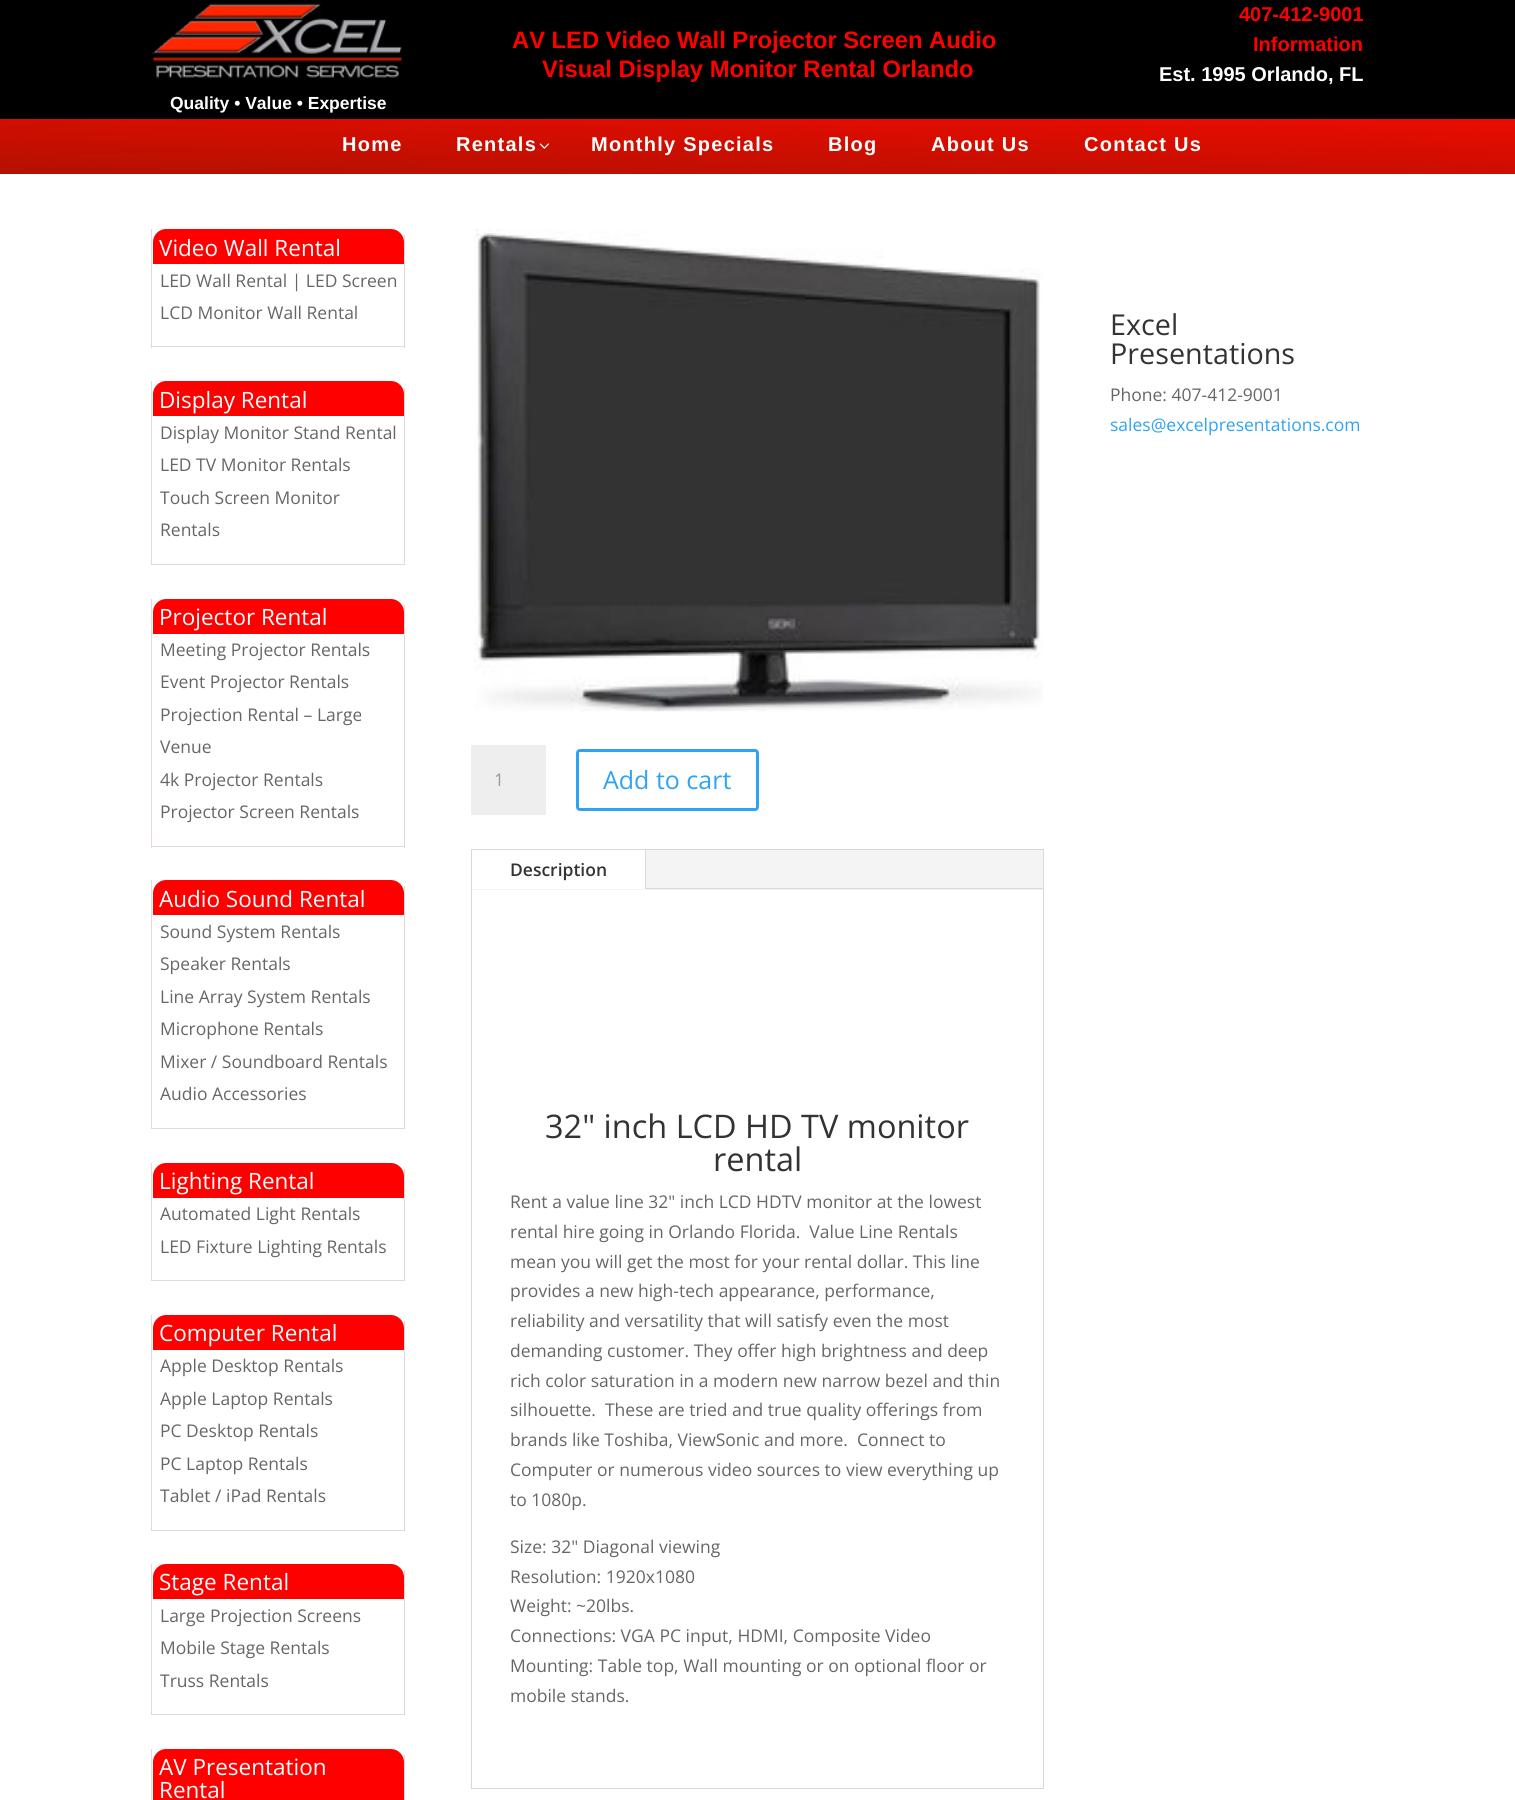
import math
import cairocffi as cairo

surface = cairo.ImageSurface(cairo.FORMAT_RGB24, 1515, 1800)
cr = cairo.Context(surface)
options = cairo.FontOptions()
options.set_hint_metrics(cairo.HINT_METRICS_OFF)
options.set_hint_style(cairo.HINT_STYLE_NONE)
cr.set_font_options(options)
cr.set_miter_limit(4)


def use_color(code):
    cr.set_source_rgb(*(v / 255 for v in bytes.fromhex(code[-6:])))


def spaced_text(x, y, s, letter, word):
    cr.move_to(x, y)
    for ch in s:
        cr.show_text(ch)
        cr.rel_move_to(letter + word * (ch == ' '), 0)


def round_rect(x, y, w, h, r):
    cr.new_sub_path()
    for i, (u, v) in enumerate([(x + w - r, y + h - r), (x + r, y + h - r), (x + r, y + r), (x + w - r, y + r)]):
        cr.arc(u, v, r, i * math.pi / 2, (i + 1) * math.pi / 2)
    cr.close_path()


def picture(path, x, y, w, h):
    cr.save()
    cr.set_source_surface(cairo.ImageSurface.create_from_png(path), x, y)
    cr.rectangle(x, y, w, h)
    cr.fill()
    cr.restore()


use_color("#ffffff")
cr.paint()
use_color("#000000")
cr.rectangle(0, 0, 1515, 119)
cr.fill()
cr.select_font_face("Liberation Sans", cairo.FONT_SLANT_NORMAL, cairo.FONT_WEIGHT_BOLD)
cr.set_font_size(23.75)
use_color("#ff0000")
cr.move_to(512, 48)
cr.show_text("AV LED Video Wall Projector Screen Audio")
cr.move_to(542, 77)
cr.show_text("Visual Display Monitor Rental Orlando")
cr.set_font_size(20)
cr.move_to(1239, 21)
cr.show_text("407-412-9001")
cr.move_to(1253, 51)
cr.show_text("Information")
use_color("#ffffff")
cr.move_to(1159, 81)
cr.show_text("Est. 1995 Orlando, FL")
picture("img1.png", 152, 3, 251, 75)
cr.set_font_size(17.5)
cr.move_to(170, 109)
cr.show_text("Quality • Value • Expertise")
gradient = cairo.LinearGradient(759, 92, 756, 200)
gradient.add_color_stop_rgba(0, 0.933, 0.043, 0, 1)
gradient.add_color_stop_rgba(1, 0.69, 0.067, 0, 1)
cr.set_source(gradient)
cr.rectangle(0, 119, 1515, 55)
cr.fill()
cr.set_font_size(20)
use_color("#ffffff")
spaced_text(342, 151, "Home", 1.25, 0)
spaced_text(456, 151, "Rentals", 1.25, 0)
picture("img2.png", 539, 143, 10, 6)
spaced_text(591, 151, "Monthly Specials", 1.25, 0)
spaced_text(828, 151, "Blog", 1.25, 0)
spaced_text(931, 151, "About Us", 1.25, 0)
spaced_text(1084, 151, "Contact Us", 1.25, 0)
use_color("#e3d7d7")
cr.rectangle(404, 235, 1, 113)
cr.fill()
cr.rectangle(151, 346, 254, 1)
cr.fill()
cr.rectangle(151, 229, 1, 119)
cr.fill()
use_color("#ff0000")
cr.new_path()
cr.move_to(166, 229)
cr.line_to(391, 229)
cr.curve_to(398, 229, 404, 235, 404, 242)
cr.line_to(404, 264)
cr.line_to(153, 264)
cr.line_to(153, 242)
cr.curve_to(153, 235, 159, 229, 166, 229)
cr.close_path()
cr.fill()
cr.select_font_face("Open Sans")
cr.set_font_size(22.5)
use_color("#ffffff")
cr.move_to(159, 256)
cr.show_text("Video Wall Rental")
cr.set_font_size(17.5)
use_color("#666666")
cr.move_to(160, 287)
cr.show_text("LED Wall Rental | LED Screen")
cr.move_to(160, 319)
cr.show_text("LCD Monitor Wall Rental")
use_color("#e3d7d7")
cr.rectangle(404, 388, 1, 177)
cr.fill()
cr.rectangle(151, 564, 254, 1)
cr.fill()
cr.rectangle(151, 381, 1, 184)
cr.fill()
use_color("#ff0000")
cr.new_path()
cr.move_to(166, 381)
cr.line_to(391, 381)
cr.curve_to(398, 381, 404, 387, 404, 394)
cr.line_to(404, 416)
cr.line_to(153, 416)
cr.line_to(153, 394)
cr.curve_to(153, 387, 159, 381, 166, 381)
cr.close_path()
cr.fill()
cr.set_font_size(22.5)
use_color("#ffffff")
cr.move_to(159, 408)
cr.show_text("Display Rental")
cr.set_font_size(17.5)
use_color("#666666")
cr.move_to(160, 439)
cr.show_text("Display Monitor Stand Rental")
cr.move_to(160, 471)
cr.show_text("LED TV Monitor Rentals")
cr.move_to(160, 504)
cr.show_text("Touch Screen Monitor")
cr.move_to(160, 536)
cr.show_text("Rentals")
use_color("#e3d7d7")
cr.rectangle(404, 605, 1, 243)
cr.fill()
cr.rectangle(151, 846, 254, 1)
cr.fill()
cr.rectangle(151, 599, 1, 249)
cr.fill()
use_color("#ff0000")
cr.new_path()
cr.move_to(166, 599)
cr.line_to(391, 599)
cr.curve_to(398, 599, 404, 605, 404, 612)
cr.line_to(404, 634)
cr.line_to(153, 634)
cr.line_to(153, 612)
cr.curve_to(153, 605, 159, 599, 166, 599)
cr.close_path()
cr.fill()
cr.set_font_size(22.5)
use_color("#ffffff")
cr.move_to(159, 625)
cr.show_text("Projector Rental")
cr.set_font_size(17.5)
use_color("#666666")
cr.move_to(160, 656)
cr.show_text("Meeting Projector Rentals")
cr.move_to(160, 688)
cr.show_text("Event Projector Rentals")
cr.move_to(160, 721)
cr.show_text("Projection Rental – Large")
cr.move_to(160, 753)
cr.show_text("Venue")
cr.move_to(160, 786)
cr.show_text("4k Projector Rentals")
cr.move_to(160, 818)
cr.show_text("Projector Screen Rentals")
use_color("#e3d7d7")
cr.rectangle(404, 886, 1, 243)
cr.fill()
cr.rectangle(151, 1128, 254, 1)
cr.fill()
cr.rectangle(151, 880, 1, 249)
cr.fill()
use_color("#ff0000")
cr.new_path()
cr.move_to(166, 880)
cr.line_to(391, 880)
cr.curve_to(398, 880, 404, 886, 404, 893)
cr.line_to(404, 915)
cr.line_to(153, 915)
cr.line_to(153, 893)
cr.curve_to(153, 886, 159, 880, 166, 880)
cr.close_path()
cr.fill()
cr.set_font_size(22.5)
use_color("#ffffff")
cr.move_to(159, 907)
cr.show_text("Audio Sound Rental")
cr.set_font_size(17.5)
use_color("#666666")
cr.move_to(160, 938)
cr.show_text("Sound System Rentals")
cr.move_to(160, 970)
cr.show_text("Speaker Rentals")
cr.move_to(160, 1003)
cr.show_text("Line Array System Rentals")
cr.move_to(160, 1035)
cr.show_text("Microphone Rentals")
cr.move_to(160, 1068)
cr.show_text("Mixer / Soundboard Rentals")
cr.move_to(160, 1100)
cr.show_text("Audio Accessories")
use_color("#e3d7d7")
cr.rectangle(404, 1169, 1, 112)
cr.fill()
cr.rectangle(151, 1280, 254, 1)
cr.fill()
cr.rectangle(151, 1163, 1, 118)
cr.fill()
use_color("#ff0000")
cr.new_path()
cr.move_to(166, 1163)
cr.line_to(391, 1163)
cr.curve_to(398, 1163, 404, 1169, 404, 1176)
cr.line_to(404, 1198)
cr.line_to(153, 1198)
cr.line_to(153, 1176)
cr.curve_to(153, 1169, 159, 1163, 166, 1163)
cr.close_path()
cr.fill()
cr.set_font_size(22.5)
use_color("#ffffff")
cr.move_to(159, 1189)
cr.show_text("Lighting Rental")
cr.set_font_size(17.5)
use_color("#666666")
cr.move_to(160, 1220)
cr.show_text("Automated Light Rentals")
cr.move_to(160, 1253)
cr.show_text("LED Fixture Lighting Rentals")
use_color("#e3d7d7")
cr.rectangle(404, 1321, 1, 210)
cr.fill()
cr.rectangle(151, 1530, 254, 1)
cr.fill()
cr.rectangle(151, 1315, 1, 216)
cr.fill()
use_color("#ff0000")
cr.new_path()
cr.move_to(166, 1315)
cr.line_to(391, 1315)
cr.curve_to(398, 1315, 404, 1321, 404, 1328)
cr.line_to(404, 1350)
cr.line_to(153, 1350)
cr.line_to(153, 1328)
cr.curve_to(153, 1321, 159, 1315, 166, 1315)
cr.close_path()
cr.fill()
cr.set_font_size(22.5)
use_color("#ffffff")
cr.move_to(159, 1341)
cr.show_text("Computer Rental")
cr.set_font_size(17.5)
use_color("#666666")
cr.move_to(160, 1372)
cr.show_text("Apple Desktop Rentals")
cr.move_to(160, 1405)
cr.show_text("Apple Laptop Rentals")
cr.move_to(160, 1437)
cr.show_text("PC Desktop Rentals")
cr.move_to(160, 1470)
cr.show_text("PC Laptop Rentals")
cr.move_to(160, 1502)
cr.show_text("Tablet / iPad Rentals")
use_color("#e3d7d7")
cr.rectangle(404, 1570, 1, 145)
cr.fill()
cr.rectangle(151, 1714, 254, 1)
cr.fill()
cr.rectangle(151, 1564, 1, 151)
cr.fill()
use_color("#ff0000")
cr.new_path()
cr.move_to(166, 1564)
cr.line_to(391, 1564)
cr.curve_to(398, 1564, 404, 1570, 404, 1577)
cr.line_to(404, 1599)
cr.line_to(153, 1599)
cr.line_to(153, 1577)
cr.curve_to(153, 1570, 159, 1564, 166, 1564)
cr.close_path()
cr.fill()
cr.set_font_size(22.5)
use_color("#ffffff")
cr.move_to(159, 1590)
cr.show_text("Stage Rental")
cr.set_font_size(17.5)
use_color("#666666")
cr.move_to(160, 1622)
cr.show_text("Large Projection Screens")
cr.move_to(160, 1654)
cr.show_text("Mobile Stage Rentals")
cr.move_to(160, 1687)
cr.show_text("Truss Rentals")
use_color("#e3d7d7")
cr.rectangle(404, 1755, 1, 45)
cr.fill()
cr.rectangle(151, 1749, 1, 51)
cr.fill()
use_color("#ff0000")
cr.new_path()
cr.move_to(166, 1749)
cr.line_to(391, 1749)
cr.curve_to(398, 1749, 404, 1755, 404, 1762)
cr.line_to(404, 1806)
cr.line_to(153, 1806)
cr.line_to(153, 1762)
cr.curve_to(153, 1755, 159, 1749, 166, 1749)
cr.close_path()
cr.fill()
cr.set_font_size(22.5)
use_color("#ffffff")
cr.move_to(159, 1775)
cr.show_text("AV Presentation")
cr.move_to(159, 1798)
cr.show_text("Rental")
cr.set_font_size(28.75)
use_color("#333333")
cr.move_to(1110, 335)
cr.show_text("Excel")
cr.move_to(1110, 364)
cr.show_text("Presentations")
cr.set_font_size(17.5)
use_color("#666666")
cr.move_to(1110, 401)
cr.show_text("Phone: 407-412-9001")
use_color("#2ea3f2")
cr.move_to(1110, 431)
cr.show_text("sales@excelpresentations.com")
picture("img3.png", 474, 229, 569, 483)
use_color("#eeeeee")
cr.rectangle(471, 745, 75, 70)
cr.fill()
use_color("#999999")
cr.move_to(494, 786)
cr.show_text("1")
round_rect(577.5, 750.5, 180, 59, 2.5)
use_color("#2ea3f2")
cr.set_line_width(3)
cr.stroke()
cr.set_font_size(25)
cr.move_to(603, 789)
cr.show_text("Add to cart")
cr.rectangle(471.5, 849.5, 572, 939)
use_color("#d9d9d9")
cr.set_line_width(1)
cr.stroke()
use_color("#f4f4f4")
cr.rectangle(473, 850, 570, 40)
cr.fill()
use_color("#ffffff")
cr.rectangle(473, 850, 172, 39)
cr.fill()
use_color("#d9d9d9")
cr.rectangle(645, 850, 1, 39)
cr.fill()
cr.select_font_face("Open Sans SemiBold")
cr.set_font_size(17.5)
use_color("#333333")
cr.move_to(510, 876)
cr.show_text("Description")
use_color("#d9d9d9")
cr.rectangle(646, 888, 397, 1)
cr.fill()
cr.select_font_face("Open Sans")
cr.set_font_size(32.5)
use_color("#333333")
cr.move_to(545, 1138)
cr.show_text("32\" inch LCD HD TV monitor")
cr.move_to(713, 1171)
cr.show_text("rental")
cr.set_font_size(17.5)
use_color("#666666")
cr.move_to(510, 1208)
cr.show_text("Rent a value line 32\" inch LCD HDTV monitor at the lowest")
cr.move_to(510, 1238)
cr.show_text("rental hire going in Orlando Florida.  Value Line Rentals")
cr.move_to(510, 1268)
cr.show_text("mean you will get the most for your rental dollar. This line")
cr.move_to(510, 1297)
cr.show_text("provides a new high-tech appearance, performance,")
cr.move_to(510, 1327)
cr.show_text("reliability and versatility that will satisfy even the most")
cr.move_to(510, 1357)
cr.show_text("demanding customer. They offer high brightness and deep")
cr.move_to(510, 1387)
cr.show_text("rich color saturation in a modern new narrow bezel and thin")
cr.move_to(510, 1416)
cr.show_text("silhouette.  These are tried and true quality offerings from")
cr.move_to(510, 1446)
cr.show_text("brands like Toshiba, ViewSonic and more.  Connect to")
cr.move_to(510, 1476)
cr.show_text("Computer or numerous video sources to view everything up")
cr.move_to(510, 1506)
cr.show_text("to 1080p.")
cr.move_to(510, 1553)
cr.show_text("Size: 32\" Diagonal viewing")
cr.move_to(510, 1583)
cr.show_text("Resolution: 1920x1080")
cr.move_to(510, 1612)
cr.show_text("Weight: ~20lbs.")
cr.move_to(510, 1642)
cr.show_text("Connections: VGA PC input, HDMI, Composite Video")
cr.move_to(510, 1672)
cr.show_text("Mounting: Table top, Wall mounting or on optional floor or")
cr.move_to(510, 1702)
cr.show_text("mobile stands.")
surface.write_to_png("result.png")
